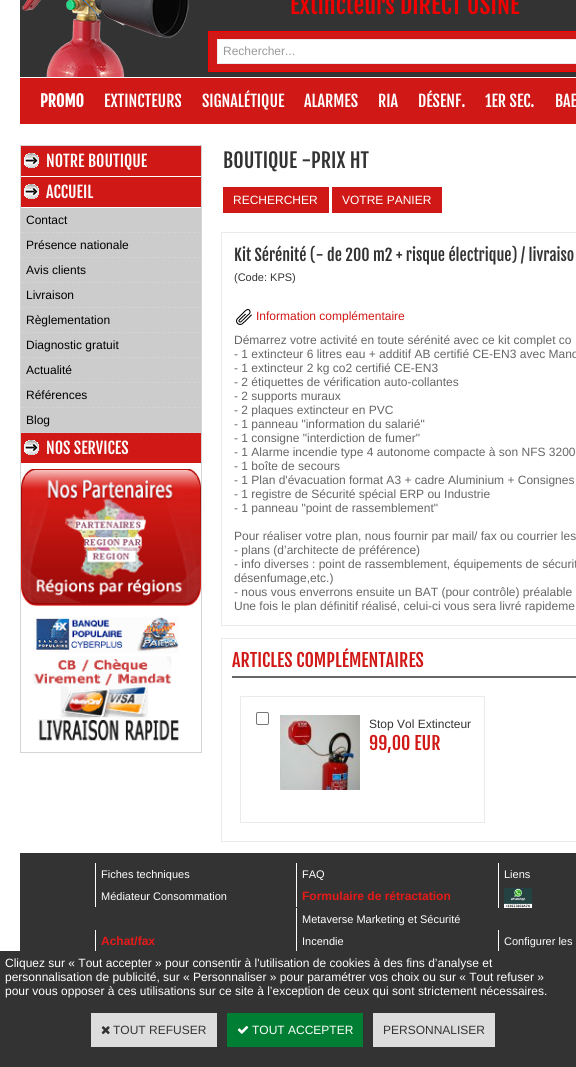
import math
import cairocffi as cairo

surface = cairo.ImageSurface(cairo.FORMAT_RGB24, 576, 1067)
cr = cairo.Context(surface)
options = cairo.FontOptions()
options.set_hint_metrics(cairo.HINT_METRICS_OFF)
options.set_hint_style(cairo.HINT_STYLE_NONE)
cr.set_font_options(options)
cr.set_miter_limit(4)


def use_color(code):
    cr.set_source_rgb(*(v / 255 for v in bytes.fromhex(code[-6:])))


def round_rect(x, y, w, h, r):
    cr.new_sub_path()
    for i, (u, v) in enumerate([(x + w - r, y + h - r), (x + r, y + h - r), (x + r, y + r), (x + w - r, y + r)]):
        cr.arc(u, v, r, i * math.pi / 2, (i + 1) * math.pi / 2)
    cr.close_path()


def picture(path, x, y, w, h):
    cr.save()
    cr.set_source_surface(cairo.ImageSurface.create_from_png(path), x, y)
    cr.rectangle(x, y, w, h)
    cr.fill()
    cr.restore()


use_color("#ffffff")
cr.paint()
picture("img1.png", 20, 0, 556, 77)
cr.select_font_face("Fjalla One")
cr.set_font_size(24)
use_color("#f00000")
cr.move_to(290, 14)
cr.show_text("Extincteurs DIRECT USINE")
use_color("#d01816")
cr.rectangle(208.5, 31.5, 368, 40)
cr.fill_preserve()
use_color("#ff0000")
cr.set_line_width(1)
cr.stroke()
use_color("#ffffff")
cr.rectangle(217.5, 39.5, 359, 24)
cr.fill_preserve()
use_color("#ebebeb")
cr.stroke()
cr.select_font_face("Liberation Sans")
cr.set_font_size(12)
use_color("#999999")
cr.move_to(223, 55)
cr.show_text("Rechercher...")
use_color("#d01816")
cr.rectangle(20, 78, 556, 46)
cr.fill()
cr.select_font_face("Fjalla One", cairo.FONT_SLANT_NORMAL, cairo.FONT_WEIGHT_BOLD)
cr.set_font_size(16)
use_color("#ffffff")
cr.move_to(40, 107)
cr.show_text("PROMO")
cr.select_font_face("Fjalla One")
cr.move_to(104, 107)
cr.show_text("EXTINCTEURS")
cr.move_to(202, 107)
cr.show_text("SIGNALÉTIQUE")
cr.move_to(304, 107)
cr.show_text("ALARMES")
cr.move_to(378, 107)
cr.show_text("RIA")
cr.move_to(418, 107)
cr.show_text("DÉSENF.")
cr.move_to(485, 107)
cr.show_text("1ER SEC.")
cr.move_to(555, 107)
cr.show_text("BAE")
cr.rectangle(20.5, 145.5, 181, 607)
use_color("#d4d4d4")
cr.stroke()
use_color("#d01816")
cr.rectangle(21, 146, 180, 30)
cr.fill()
picture("img2.png", 24, 153, 15, 15)
use_color("#ffffff")
cr.move_to(46, 167)
cr.show_text("NOTRE BOUTIQUE")
use_color("#d01816")
cr.rectangle(21, 177, 180, 30)
cr.fill()
picture("img2.png", 24, 184, 15, 15)
use_color("#ffffff")
cr.move_to(46, 198)
cr.show_text("ACCUEIL")
use_color("#cccccc")
cr.rectangle(21, 208, 180, 225)
cr.fill()
cr.new_path()
cr.move_to(21, 232.5)
cr.line_to(201, 232.5)
use_color("#d4d4d4")
cr.set_dash([3, 2.06])
cr.stroke()
cr.select_font_face("Liberation Sans")
cr.set_font_size(12)
use_color("#000000")
cr.move_to(26, 224)
cr.show_text("Contact")
cr.new_path()
cr.move_to(21, 257.5)
cr.line_to(201, 257.5)
use_color("#d4d4d4")
cr.stroke()
use_color("#000000")
cr.move_to(26, 249)
cr.show_text("Présence nationale")
cr.new_path()
cr.move_to(21, 282.5)
cr.line_to(201, 282.5)
use_color("#d4d4d4")
cr.stroke()
use_color("#000000")
cr.move_to(26, 274)
cr.show_text("Avis clients")
cr.new_path()
cr.move_to(21, 307.5)
cr.line_to(201, 307.5)
use_color("#d4d4d4")
cr.stroke()
use_color("#000000")
cr.move_to(26, 299)
cr.show_text("Livraison")
cr.new_path()
cr.move_to(21, 332.5)
cr.line_to(201, 332.5)
use_color("#d4d4d4")
cr.stroke()
use_color("#000000")
cr.move_to(26, 324)
cr.show_text("Règlementation")
cr.new_path()
cr.move_to(21, 357.5)
cr.line_to(201, 357.5)
use_color("#d4d4d4")
cr.stroke()
use_color("#000000")
cr.move_to(26, 349)
cr.show_text("Diagnostic gratuit")
cr.new_path()
cr.move_to(21, 382.5)
cr.line_to(201, 382.5)
use_color("#d4d4d4")
cr.stroke()
use_color("#000000")
cr.move_to(26, 374)
cr.show_text("Actualité")
cr.new_path()
cr.move_to(21, 407.5)
cr.line_to(201, 407.5)
use_color("#d4d4d4")
cr.stroke()
use_color("#000000")
cr.move_to(26, 399)
cr.show_text("Références")
cr.new_path()
cr.move_to(21, 432.5)
cr.line_to(201, 432.5)
use_color("#d4d4d4")
cr.stroke()
use_color("#000000")
cr.move_to(26, 424)
cr.show_text("Blog")
use_color("#d01816")
cr.rectangle(21, 433, 180, 30)
cr.fill()
picture("img2.png", 24, 440, 15, 15)
cr.select_font_face("Fjalla One")
cr.set_font_size(16)
use_color("#ffffff")
cr.move_to(46, 454)
cr.show_text("NOS SERVICES")
picture("img3.png", 21, 469, 180, 137)
picture("img4.png", 33, 617, 146, 124)
cr.set_font_size(20)
use_color("#333333")
cr.move_to(223, 168)
cr.show_text("BOUTIQUE -PRIX HT")
use_color("#d01816")
cr.rectangle(223, 187, 106, 26)
cr.fill()
cr.select_font_face("Liberation Sans")
cr.set_font_size(12)
use_color("#ffffff")
cr.move_to(233, 204)
cr.show_text("RECHERCHER")
use_color("#d01816")
cr.rectangle(332, 187, 110, 26)
cr.fill()
use_color("#ffffff")
cr.move_to(342, 204)
cr.show_text("VOTRE PANIER")
cr.rectangle(221.5, 232.5, 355, 393)
use_color("#ebebeb")
cr.set_dash([])
cr.stroke()
cr.select_font_face("Fjalla One")
cr.set_font_size(16)
use_color("#333333")
cr.move_to(234, 261)
cr.show_text("Kit Sérénité (- de 200 m2 + risque électrique) / livraiso")
cr.select_font_face("Liberation Sans")
cr.set_font_size(11)
cr.move_to(234, 281)
cr.show_text("(Code: KPS)")
picture("img5.png", 236, 309, 16, 16)
cr.set_font_size(12)
use_color("#d01816")
cr.move_to(256, 320)
cr.show_text("Information complémentaire")
use_color("#666666")
cr.move_to(234, 344)
cr.show_text("Démarrez votre activité en toute sérénité avec ce kit complet co")
cr.move_to(234, 358)
cr.show_text("- 1 extincteur 6 litres eau + additif AB certifié CE-EN3 avec Mano")
cr.move_to(234, 372)
cr.show_text("- 1 extincteur 2 kg co2 certifié CE-EN3")
cr.move_to(234, 386)
cr.show_text("- 2 étiquettes de vérification auto-collantes")
cr.move_to(234, 400)
cr.show_text("- 2 supports muraux")
cr.move_to(234, 414)
cr.show_text("- 2 plaques extincteur en PVC")
cr.move_to(234, 428)
cr.show_text("- 1 panneau \"information du salarié\"")
cr.move_to(234, 442)
cr.show_text("- 1 consigne \"interdiction de fumer\"")
cr.move_to(234, 456)
cr.show_text("- 1 Alarme incendie type 4 autonome compacte à son NFS 3200")
cr.move_to(234, 470)
cr.show_text("- 1 boîte de secours")
cr.move_to(234, 484)
cr.show_text("- 1 Plan d'évacuation format A3 + cadre Aluminium + Consignes")
cr.move_to(234, 498)
cr.show_text("- 1 registre de Sécurité spécial ERP ou Industrie")
cr.move_to(234, 512)
cr.show_text("- 1 panneau \"point de rassemblement\"")
cr.move_to(234, 540)
cr.show_text("Pour réaliser votre plan, nous fournir par mail/ fax ou courrier les")
cr.move_to(234, 554)
cr.show_text("- plans (d’architecte de préférence)")
cr.move_to(234, 568)
cr.show_text("- info diverses : point de rassemblement, équipements de sécurit")
cr.move_to(234, 582)
cr.show_text("désenfumage,etc.)")
cr.move_to(234, 596)
cr.show_text("- nous vous enverrons ensuite un BAT (pour contrôle) préalable")
cr.move_to(234, 610)
cr.show_text("Une fois le plan définitif réalisé, celui-ci vous sera livré rapideme")
cr.rectangle(221.5, 638.5, 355, 203)
use_color("#ebebeb")
cr.stroke()
use_color("#666666")
cr.rectangle(232, 676, 344, 2)
cr.fill()
cr.select_font_face("Fjalla One")
cr.set_font_size(18)
use_color("#d01816")
cr.move_to(232, 667)
cr.show_text("ARTICLES COMPLÉMENTAIRES")
cr.rectangle(240.5, 696.5, 244, 126)
use_color("#ebebeb")
cr.stroke()
round_rect(256.5, 712.5, 12, 12, 1.5)
use_color("#767676")
cr.stroke()
picture("img6.png", 280, 715, 80, 75)
cr.select_font_face("Liberation Sans")
cr.set_font_size(12)
use_color("#333333")
cr.move_to(369, 728)
cr.show_text("Stop Vol Extincteur")
cr.select_font_face("Fjalla One")
cr.set_font_size(18)
use_color("#d01816")
cr.move_to(369, 750)
cr.show_text("99,00 EUR")
use_color("#333333")
cr.rectangle(20, 853, 556, 98)
cr.fill()
use_color("#ffffff")
cr.rectangle(95, 863, 1, 44)
cr.fill()
cr.select_font_face("Liberation Sans")
cr.set_font_size(11)
cr.move_to(101, 878)
cr.show_text("Fiches techniques")
cr.rectangle(296, 863, 1, 44)
cr.fill()
cr.move_to(302, 878)
cr.show_text("FAQ")
cr.rectangle(498, 863, 1, 45)
cr.fill()
cr.move_to(504, 878)
cr.show_text("Liens")
cr.move_to(101, 900)
cr.show_text("Médiateur Consommation")
cr.select_font_face("Liberation Sans", cairo.FONT_SLANT_NORMAL, cairo.FONT_WEIGHT_BOLD)
cr.set_font_size(12)
use_color("#e61a18")
cr.move_to(302, 900)
cr.show_text("Formulaire de rétractation")
picture("img7.png", 504, 888, 28, 20)
use_color("#ffffff")
cr.rectangle(95, 930, 1, 22)
cr.fill()
use_color("#e61a18")
cr.move_to(101, 945)
cr.show_text("Achat/fax")
use_color("#ffffff")
cr.rectangle(296, 908, 1, 44)
cr.fill()
cr.select_font_face("Liberation Sans")
cr.set_font_size(11)
cr.move_to(302, 923)
cr.show_text("Metaverse Marketing et Sécurité")
cr.move_to(302, 945)
cr.show_text("Incendie")
cr.rectangle(498, 930, 1, 22)
cr.fill()
cr.move_to(504, 945)
cr.show_text("Configurer les")
use_color("#333333")
cr.rectangle(0, 951, 576, 116)
cr.fill()
cr.set_font_size(12)
use_color("#ffffff")
cr.move_to(5, 967)
cr.show_text("Cliquez sur « Tout accepter » pour consentir à l'utilisation de cookies à des fins d’analyse et")
cr.move_to(5, 981)
cr.show_text("personnalisation de publicité, sur « Personnaliser » pour paramétrer vos choix ou sur « Tout refuser »")
cr.move_to(5, 995)
cr.show_text("pour vous opposer à ces utilisations sur ce site à l’exception de ceux qui sont strictement nécessaires.")
use_color("#dddddd")
cr.rectangle(91, 1013, 126, 34)
cr.fill()
picture("img8.png", 101, 1026, 9, 9)
use_color("#333333")
cr.move_to(113, 1034)
cr.show_text("TOUT REFUSER")
use_color("#007e33")
cr.rectangle(227, 1013, 136, 34)
cr.fill()
picture("img9.png", 237, 1026, 12, 8)
use_color("#ffffff")
cr.move_to(252, 1034)
cr.show_text("TOUT ACCEPTER")
use_color("#dddddd")
cr.rectangle(373, 1013, 122, 34)
cr.fill()
use_color("#333333")
cr.move_to(383, 1034)
cr.show_text("PERSONNALISER")
surface.write_to_png("result.png")
